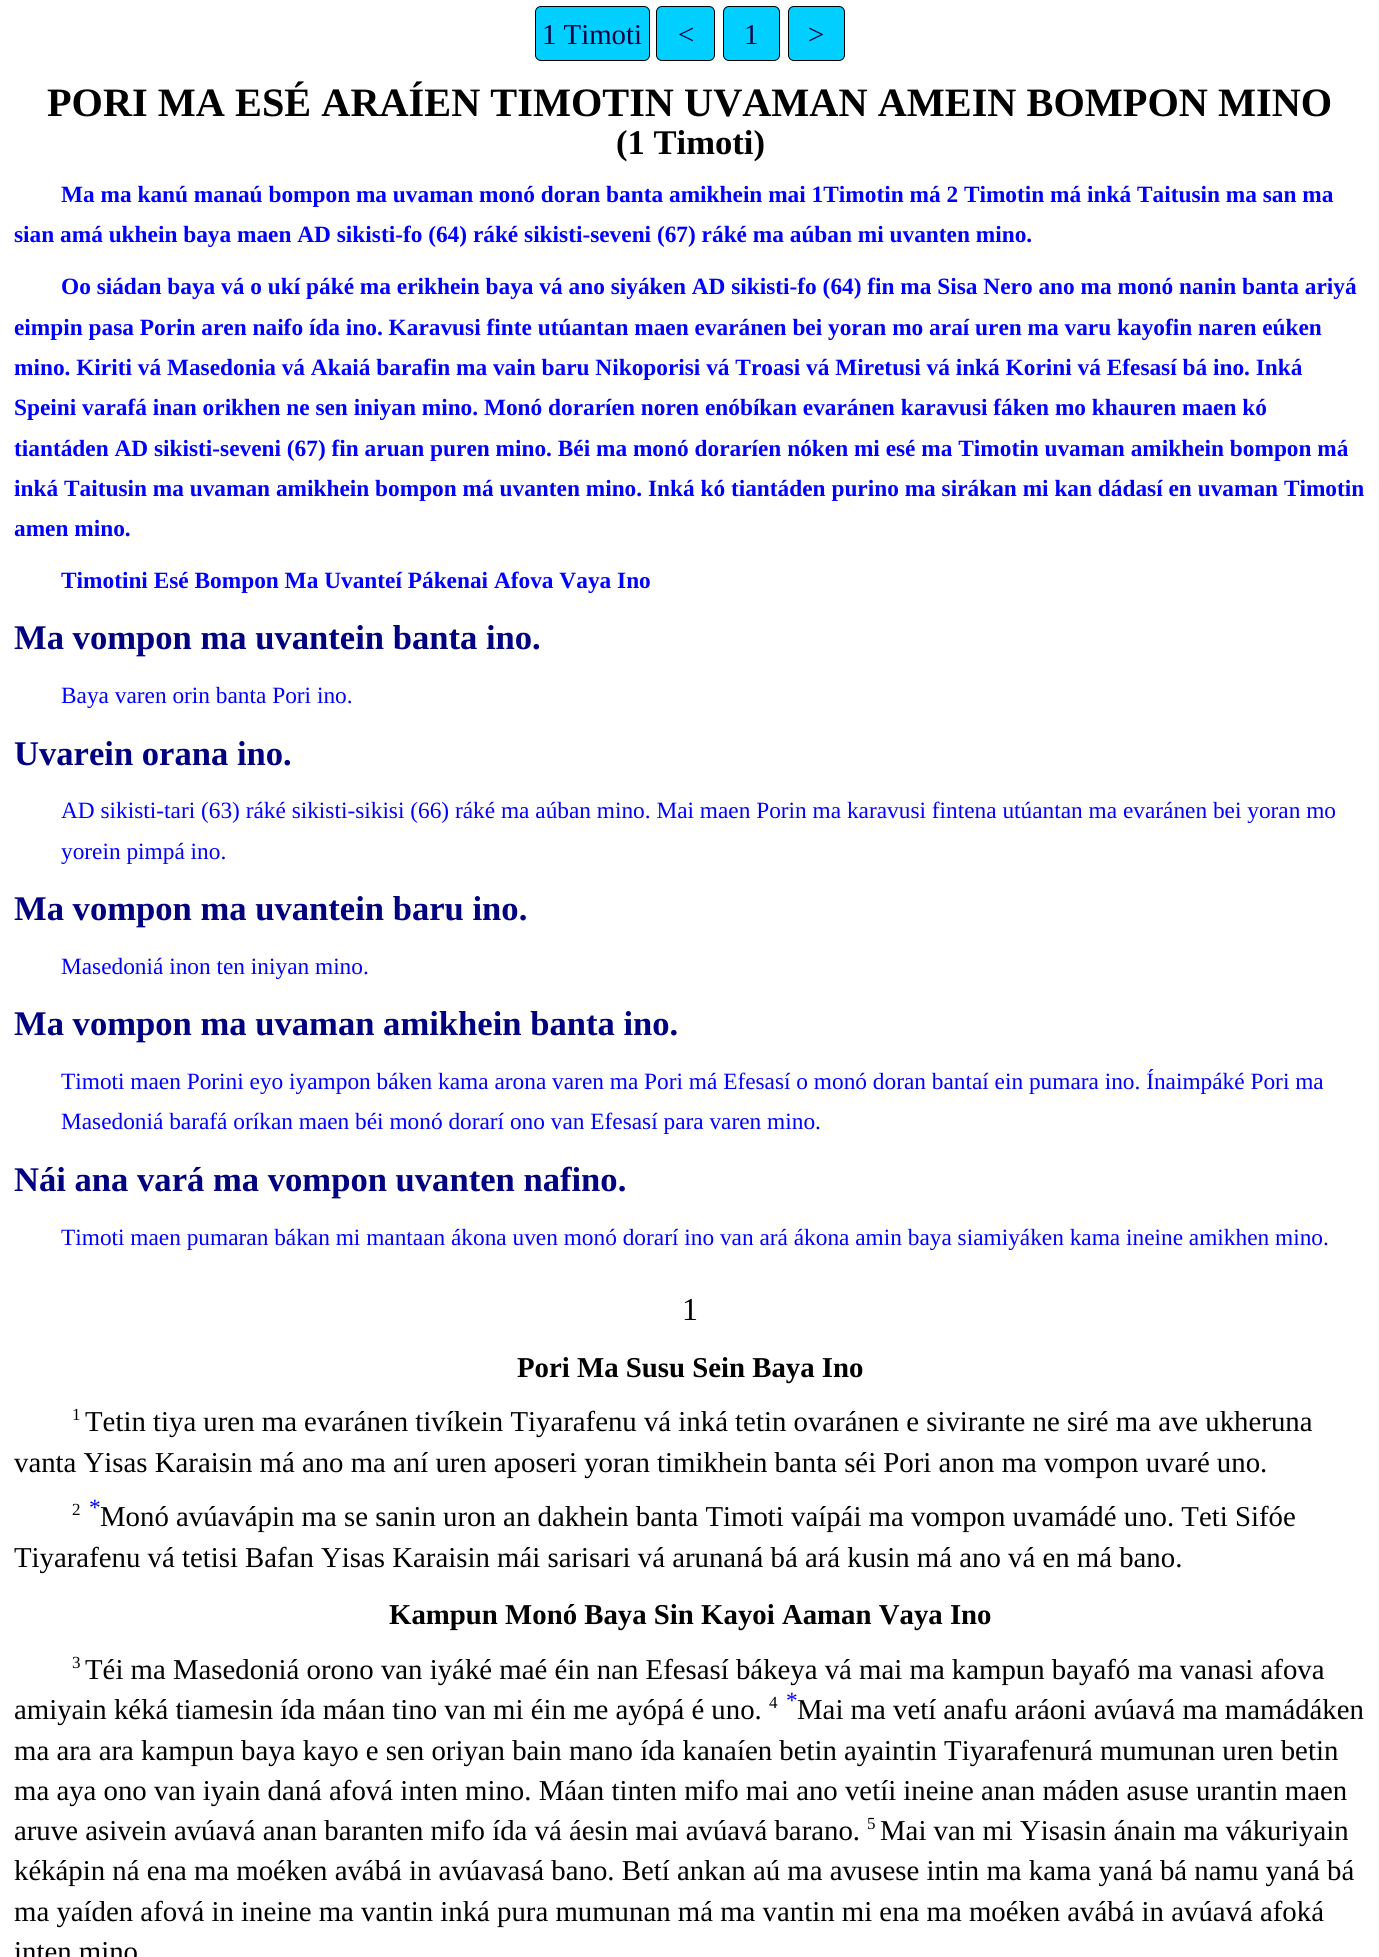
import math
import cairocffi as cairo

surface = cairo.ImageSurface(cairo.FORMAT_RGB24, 1379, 1957)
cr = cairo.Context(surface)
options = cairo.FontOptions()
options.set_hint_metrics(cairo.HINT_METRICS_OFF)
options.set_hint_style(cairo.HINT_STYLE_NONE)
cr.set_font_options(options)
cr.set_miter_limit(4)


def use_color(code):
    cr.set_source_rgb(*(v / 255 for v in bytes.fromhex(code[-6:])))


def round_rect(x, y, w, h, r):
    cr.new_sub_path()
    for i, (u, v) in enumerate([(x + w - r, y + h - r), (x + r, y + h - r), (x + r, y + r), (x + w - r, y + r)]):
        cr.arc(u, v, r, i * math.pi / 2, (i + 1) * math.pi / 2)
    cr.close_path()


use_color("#ffffff")
cr.paint()
use_color("#00cfff")
round_rect(535.5, 6.5, 114, 54, 5.5)
cr.fill_preserve()
use_color("#000000")
cr.set_line_width(1)
cr.stroke()
cr.select_font_face("Liberation Serif")
cr.set_font_size(28.8)
use_color("#000040")
cr.move_to(542, 44)
cr.show_text("1 Timoti")
use_color("#00cfff")
round_rect(656.5, 6.5, 58, 54, 5.5)
cr.fill_preserve()
use_color("#000000")
cr.stroke()
use_color("#000040")
cr.move_to(678, 44)
cr.show_text("<")
use_color("#00cfff")
round_rect(723.5, 6.5, 56, 54, 5.5)
cr.fill_preserve()
use_color("#000000")
cr.stroke()
use_color("#000040")
cr.move_to(744, 44)
cr.show_text("1")
use_color("#00cfff")
round_rect(788.5, 6.5, 56, 54, 5.5)
cr.fill_preserve()
use_color("#000000")
cr.stroke()
use_color("#000040")
cr.move_to(808, 44)
cr.show_text(">")
cr.select_font_face("Liberation Serif", cairo.FONT_SLANT_NORMAL, cairo.FONT_WEIGHT_BOLD)
cr.set_font_size(40.3)
use_color("#000000")
cr.move_to(47, 116)
cr.show_text("PORI MA ESÉ ARAÍEN TIMOTIN UVAMAN AMEIN BOMPON MINO")
cr.set_font_size(34.6)
cr.move_to(616, 154)
cr.show_text("(1 Timoti)")
cr.set_font_size(23.33)
use_color("#0000ff")
cr.move_to(61, 202)
cr.show_text("Ma ma kanú manaú bompon ma uvaman monó doran banta amikhein mai 1Timotin má 2 Timotin má inká Taitusin ma san ma")
cr.move_to(14, 242)
cr.show_text("sian amá ukhein baya maen AD sikisti-fo (64) ráké sikisti-seveni (67) ráké ma aúban mi uvanten mino.")
cr.move_to(61, 294)
cr.show_text("Oo siádan baya vá o ukí páké ma erikhein baya vá ano siyáken AD sikisti-fo (64) fin ma Sisa Nero ano ma monó nanin banta ariyá")
cr.move_to(14, 335)
cr.show_text("eimpin pasa Porin aren naifo ída ino. Karavusi finte utúantan maen evaránen bei yoran mo araí uren ma varu kayofin naren eúken")
cr.move_to(14, 375)
cr.show_text("mino. Kiriti vá Masedonia vá Akaiá barafin ma vain baru Nikoporisi vá Troasi vá Miretusi vá inká Korini vá Efesasí bá ino. Inká")
cr.move_to(14, 415)
cr.show_text("Speini varafá inan orikhen ne sen iniyan mino. Monó doraríen noren enóbíkan evaránen karavusi fáken mo khauren maen kó")
cr.move_to(14, 456)
cr.show_text("tiantáden AD sikisti-seveni (67) fin aruan puren mino. Béi ma monó doraríen nóken mi esé ma Timotin uvaman amikhein bompon má")
cr.move_to(14, 496)
cr.show_text("inká Taitusin ma uvaman amikhein bompon má uvanten mino. Inká kó tiantáden purino ma sirákan mi kan dádasí en uvaman Timotin")
cr.move_to(14, 536)
cr.show_text("amen mino.")
cr.move_to(61, 588)
cr.show_text("Timotini Esé Bompon Ma Uvanteí Pákenai Afova Vaya Ino")
cr.set_font_size(34.6)
use_color("#000080")
cr.move_to(14, 649)
cr.show_text("Ma vompon ma uvantein banta ino.")
cr.select_font_face("Liberation Serif")
cr.set_font_size(23.33)
use_color("#0000ff")
cr.move_to(61, 703)
cr.show_text("Baya varen orin banta Pori ino.")
cr.select_font_face("Liberation Serif", cairo.FONT_SLANT_NORMAL, cairo.FONT_WEIGHT_BOLD)
cr.set_font_size(34.6)
use_color("#000080")
cr.move_to(14, 765)
cr.show_text("Uvarein orana ino.")
cr.select_font_face("Liberation Serif")
cr.set_font_size(23.33)
use_color("#0000ff")
cr.move_to(61, 818)
cr.show_text("AD sikisti-tari (63) ráké sikisti-sikisi (66) ráké ma aúban mino. Mai maen Porin ma karavusi fintena utúantan ma evaránen bei yoran mo")
cr.move_to(61, 859)
cr.show_text("yorein pimpá ino.")
cr.select_font_face("Liberation Serif", cairo.FONT_SLANT_NORMAL, cairo.FONT_WEIGHT_BOLD)
cr.set_font_size(34.6)
use_color("#000080")
cr.move_to(14, 920)
cr.show_text("Ma vompon ma uvantein baru ino.")
cr.select_font_face("Liberation Serif")
cr.set_font_size(23.33)
use_color("#0000ff")
cr.move_to(61, 974)
cr.show_text("Masedoniá inon ten iniyan mino.")
cr.select_font_face("Liberation Serif", cairo.FONT_SLANT_NORMAL, cairo.FONT_WEIGHT_BOLD)
cr.set_font_size(34.6)
use_color("#000080")
cr.move_to(14, 1035)
cr.show_text("Ma vompon ma uvaman amikhein banta ino.")
cr.select_font_face("Liberation Serif")
cr.set_font_size(23.33)
use_color("#0000ff")
cr.move_to(61, 1089)
cr.show_text("Timoti maen Porini eyo iyampon báken kama arona varen ma Pori má Efesasí o monó doran bantaí ein pumara ino. Ínaimpáké Pori ma")
cr.move_to(61, 1129)
cr.show_text("Masedoniá barafá oríkan maen béi monó dorarí ono van Efesasí para varen mino.")
cr.select_font_face("Liberation Serif", cairo.FONT_SLANT_NORMAL, cairo.FONT_WEIGHT_BOLD)
cr.set_font_size(34.6)
use_color("#000080")
cr.move_to(14, 1191)
cr.show_text("Nái ana vará ma vompon uvanten nafino.")
cr.select_font_face("Liberation Serif")
cr.set_font_size(23.33)
use_color("#0000ff")
cr.move_to(61, 1245)
cr.show_text("Timoti maen pumaran bákan mi mantaan ákona uven monó dorarí ino van ará ákona amin baya siamiyáken kama ineine amikhen mino.")
cr.set_font_size(32)
use_color("#000000")
cr.move_to(682, 1320)
cr.show_text("1")
cr.select_font_face("Liberation Serif", cairo.FONT_SLANT_NORMAL, cairo.FONT_WEIGHT_BOLD)
cr.set_font_size(28.8)
cr.move_to(517, 1377)
cr.show_text("Pori Ma Susu Sein Baya Ino")
cr.select_font_face("Liberation Serif")
cr.set_font_size(17)
cr.move_to(72, 1420)
cr.show_text("1")
cr.set_font_size(28.8)
cr.move_to(85, 1431)
cr.show_text("Tetin tiya uren ma evaránen tivíkein Tiyarafenu vá inká tetin ovaránen e sivirante ne siré ma ave ukheruna")
cr.move_to(14, 1472)
cr.show_text("vanta Yisas Karaisin má ano ma aní uren aposeri yoran timikhein banta séi Pori anon ma vompon uvaré uno.")
cr.set_font_size(17)
cr.move_to(72, 1515)
cr.show_text("2")
cr.set_font_size(23.33)
use_color("#0000ff")
cr.move_to(89, 1515)
cr.show_text("*")
cr.set_font_size(28.8)
use_color("#000000")
cr.move_to(100, 1526)
cr.show_text("Monó avúavápin ma se sanin uron an dakhein banta Timoti vaípái ma vompon uvamádé uno. Teti Sifóe")
cr.move_to(14, 1567)
cr.show_text("Tiyarafenu vá tetisi Bafan Yisas Karaisin mái sarisari vá arunaná bá ará kusin má ano vá en má bano.")
cr.select_font_face("Liberation Serif", cairo.FONT_SLANT_NORMAL, cairo.FONT_WEIGHT_BOLD)
cr.move_to(389, 1624)
cr.show_text("Kampun Monó Baya Sin Kayoi Aaman Vaya Ino")
cr.select_font_face("Liberation Serif")
cr.set_font_size(17)
cr.move_to(72, 1668)
cr.show_text("3")
cr.set_font_size(28.8)
cr.move_to(85, 1679)
cr.show_text("Téi ma Masedoniá orono van iyáké maé éin nan Efesasí bákeya vá mai ma kampun bayafó ma vanasi afova")
cr.move_to(14, 1719)
cr.show_text("amiyain kéká tiamesin ída máan tino van mi éin me ayópá é uno.")
cr.set_font_size(17)
cr.move_to(769, 1708)
cr.show_text("4")
cr.set_font_size(23.33)
use_color("#0000ff")
cr.move_to(786, 1708)
cr.show_text("*")
cr.set_font_size(28.8)
use_color("#000000")
cr.move_to(797, 1719)
cr.show_text("Mai ma vetí anafu aráoni avúavá ma mamádáken")
cr.move_to(14, 1760)
cr.show_text("ma ara ara kampun baya kayo e sen oriyan bain mano ída kanaíen betin ayaintin Tiyarafenurá mumunan uren betin")
cr.move_to(14, 1800)
cr.show_text("ma aya ono van iyain daná afová inten mino. Máan tinten mifo mai ano vetíi ineine anan máden asuse urantin maen")
cr.move_to(14, 1840)
cr.show_text("aruve asivein avúavá anan baranten mifo ída vá áesin mai avúavá barano.")
cr.set_font_size(17)
cr.move_to(867, 1829)
cr.show_text("5")
cr.set_font_size(28.8)
cr.move_to(880, 1840)
cr.show_text("Mai van mi Yisasin ánain ma vákuriyain")
cr.move_to(14, 1880)
cr.show_text("kékápin ná ena ma moéken avábá in avúavasá bano. Betí ankan aú ma avusese intin ma kama yaná bá namu yaná bá")
cr.move_to(14, 1921)
cr.show_text("ma yaíden afová in ineine ma vantin inká pura mumunan má ma vantin mi ena ma moéken avábá in avúavá afoká")
cr.move_to(14, 1961)
cr.show_text("inten mino")
surface.write_to_png("result.png")
